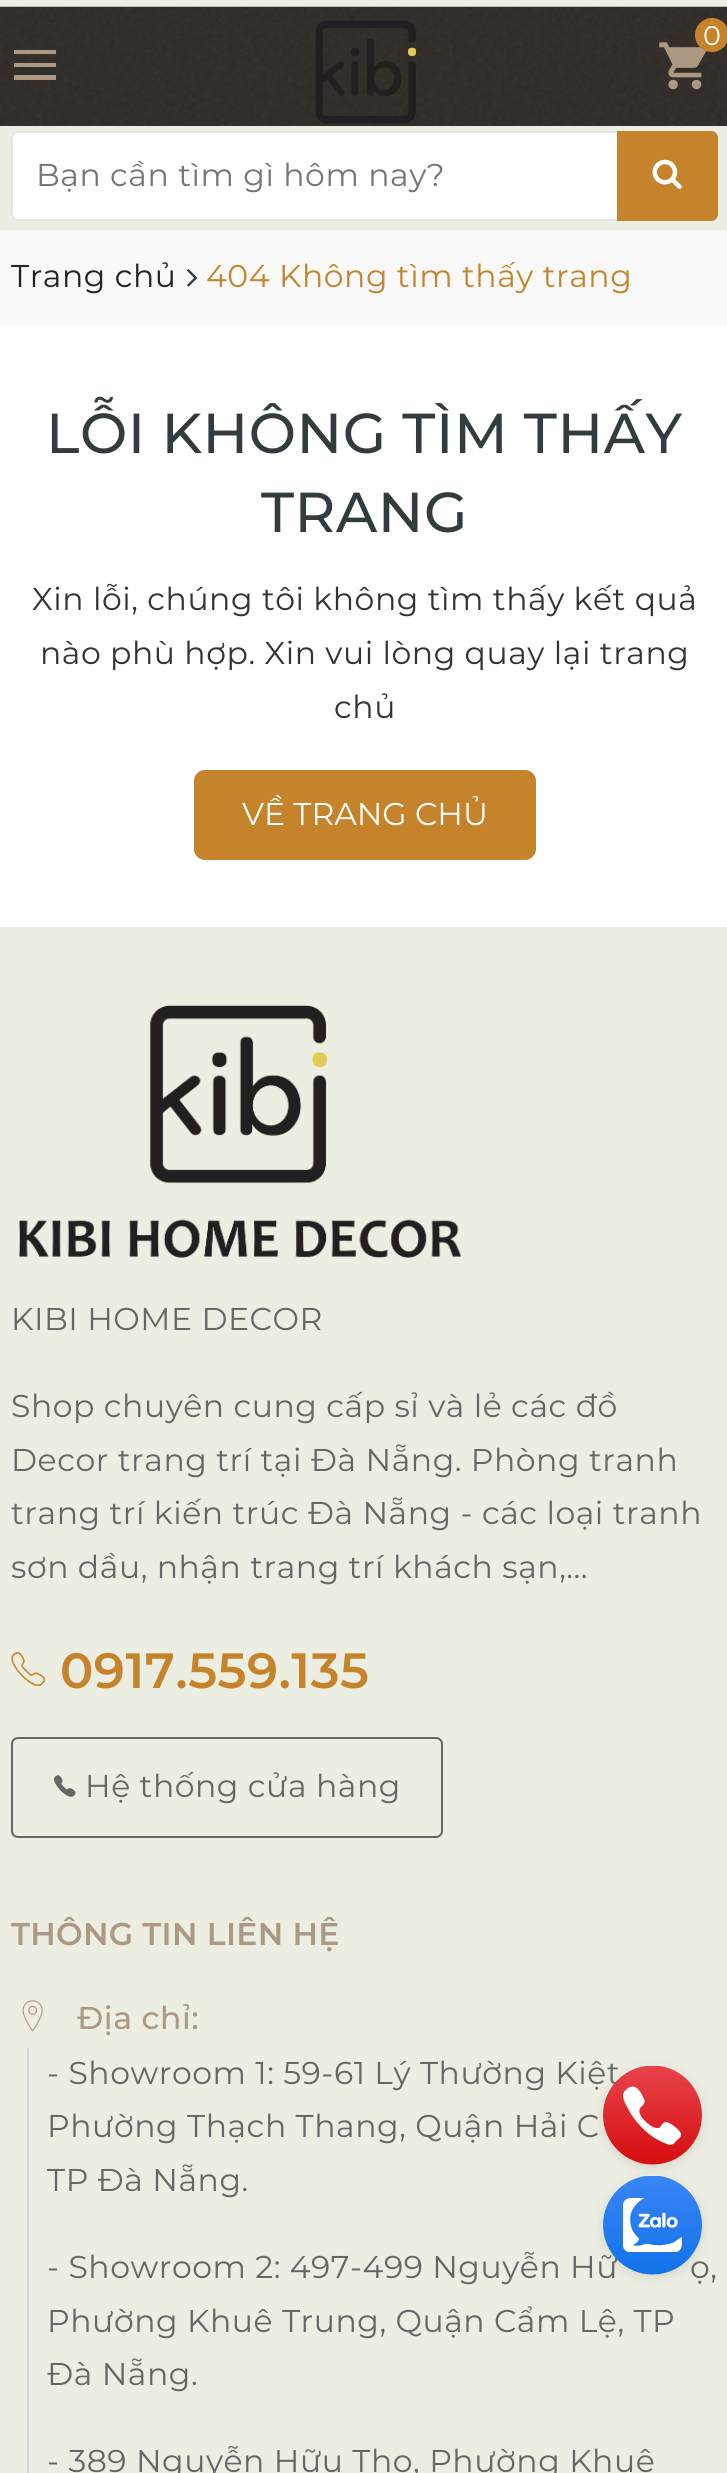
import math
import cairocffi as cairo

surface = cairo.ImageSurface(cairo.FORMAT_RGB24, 727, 2473)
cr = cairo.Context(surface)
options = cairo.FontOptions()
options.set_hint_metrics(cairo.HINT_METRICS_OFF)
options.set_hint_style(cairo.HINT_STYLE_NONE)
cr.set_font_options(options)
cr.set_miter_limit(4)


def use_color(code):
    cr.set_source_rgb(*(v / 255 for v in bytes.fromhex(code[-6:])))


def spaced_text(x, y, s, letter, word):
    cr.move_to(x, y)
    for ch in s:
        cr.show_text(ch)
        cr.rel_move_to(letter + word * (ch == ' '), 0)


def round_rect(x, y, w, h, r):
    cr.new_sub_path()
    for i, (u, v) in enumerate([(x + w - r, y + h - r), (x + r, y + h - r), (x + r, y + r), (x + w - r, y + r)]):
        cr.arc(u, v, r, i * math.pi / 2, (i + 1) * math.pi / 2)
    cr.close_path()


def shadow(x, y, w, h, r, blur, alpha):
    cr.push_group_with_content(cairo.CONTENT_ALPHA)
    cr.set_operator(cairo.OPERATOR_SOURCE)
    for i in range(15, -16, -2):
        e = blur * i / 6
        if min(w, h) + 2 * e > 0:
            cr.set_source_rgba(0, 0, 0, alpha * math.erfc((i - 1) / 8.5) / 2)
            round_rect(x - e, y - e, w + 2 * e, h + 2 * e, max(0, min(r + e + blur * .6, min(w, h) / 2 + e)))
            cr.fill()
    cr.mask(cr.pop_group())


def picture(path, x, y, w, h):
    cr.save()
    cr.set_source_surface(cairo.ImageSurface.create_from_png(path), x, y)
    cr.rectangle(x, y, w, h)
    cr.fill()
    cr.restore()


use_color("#ffffff")
cr.paint()
use_color("#edeee2")
cr.rectangle(0, 0, 727, 230)
cr.fill()
picture("img1.png", 0, 6, 727, 120)
picture("img2.png", 315, 20, 102, 104)
picture("img3.png", 659, 42, 48, 48)
use_color("#c5832b")
cr.arc(712, 35, 17, 0, 2 * math.pi)
cr.fill()
cr.select_font_face("Montserrat")
cr.set_font_size(27)
use_color("#ffffff")
spaced_text(703, 45, "0", 0.55, 0)
use_color("#ac9984")
cr.new_path()
cr.move_to(14, 67)
cr.line_to(14, 63)
cr.line_to(56, 63)
cr.line_to(56, 67)
cr.close_path()
cr.move_to(14, 54)
cr.line_to(14, 50)
cr.line_to(56, 50)
cr.line_to(56, 54)
cr.close_path()
cr.move_to(14, 80)
cr.line_to(14, 75)
cr.line_to(56, 75)
cr.line_to(56, 80)
cr.close_path()
cr.fill()
use_color("#ffffff")
cr.new_path()
cr.move_to(18, 132)
cr.line_to(618, 132)
cr.line_to(618, 220)
cr.line_to(18, 220)
cr.curve_to(14.5, 220, 12, 217.5, 12, 214)
cr.line_to(12, 138)
cr.curve_to(12, 134.5, 14.5, 132, 18, 132)
cr.close_path()
cr.fill_preserve()
use_color("#e5e5e5")
cr.stroke()
cr.set_font_size(31.5)
use_color("#757575")
spaced_text(36, 186, "Bạn cần tìm gì hôm nay?", 0.55, 0)
use_color("#c5832b")
cr.new_path()
cr.move_to(617, 131)
cr.line_to(711, 131)
cr.curve_to(715, 131, 718, 134, 718, 138)
cr.line_to(718, 214)
cr.curve_to(718, 218, 715, 221, 711, 221)
cr.line_to(617, 221)
cr.close_path()
cr.fill()
picture("img4.png", 652, 159, 30, 30)
use_color("#f9f9f9")
cr.rectangle(0, 230, 727, 96)
cr.fill()
use_color("#222222")
spaced_text(11, 287, "Trang chủ", 0.55, 0)
picture("img5.png", 187, 269, 11, 18)
use_color("#c5832b")
spaced_text(206, 287, "404 Không tìm thấy trang", 0.55, 0)
cr.select_font_face("Montserrat Medium")
cr.set_font_size(56.25)
use_color("#323c3f")
spaced_text(46, 453, "LỖI KHÔNG TÌM THẤY", 0.55, 0)
spaced_text(261, 532, "TRANG", 0.55, 0)
cr.select_font_face("Montserrat")
cr.set_font_size(31.5)
use_color("#333333")
spaced_text(32, 610, "Xin lỗi, chúng tôi không tìm thấy kết quả", 0.55, 0)
spaced_text(40, 664, "nào phù hợp. Xin vui lòng quay lại trang", 0.55, 0)
spaced_text(334, 718, "chủ", 0.55, 0)
use_color("#c5832b")
round_rect(195, 771, 340, 88, 10)
cr.fill_preserve()
cr.stroke()
use_color("#ffffff")
cr.move_to(242, 825)
cr.show_text("VỀ TRANG CHỦ")
use_color("#edeee2")
cr.rectangle(0, 927, 727, 1546)
cr.fill()
picture("img6.png", 19, 1005, 443, 253)
use_color("#666666")
spaced_text(11, 1330, "KIBI HOME DECOR", 0.55, 0)
spaced_text(11, 1417, "Shop chuyên cung cấp sỉ và lẻ các đồ", 0.55, 0)
spaced_text(11, 1471, "Decor trang trí tại Đà Nẵng. Phòng tranh", 0.55, 0)
spaced_text(11, 1524, "trang trí kiến trúc Đà Nẵng - các loại tranh", 0.55, 0)
spaced_text(11, 1578, "sơn dầu, nhận trang trí khách sạn,...", 0.55, 0)
picture("img7.png", 11, 1651, 35, 35)
cr.select_font_face("Montserrat SemiBold")
cr.set_font_size(49.5)
use_color("#c5832b")
spaced_text(60, 1688, "0917.559.135", 0.55, 0)
round_rect(12, 1738, 430, 99, 6)
use_color("#666666")
cr.stroke()
picture("img8.png", 54, 1775, 22, 22)
cr.select_font_face("Montserrat")
cr.set_font_size(31.5)
spaced_text(85, 1797, "Hệ thống cửa hàng", 0.55, 0)
cr.select_font_face("Montserrat SemiBold")
use_color("#ac9984")
spaced_text(11, 1945, "THÔNG TIN LIÊN HỆ", 0.3, 0)
picture("img9.png", 22, 2000, 21, 32)
cr.select_font_face("Montserrat Medium")
spaced_text(77, 2029, "Địa chỉ:", 0.55, 0)
use_color("#d5d5d5")
cr.rectangle(27, 2048, 2, 425)
cr.fill()
cr.select_font_face("Montserrat")
use_color("#666666")
spaced_text(47, 2084, "- Showroom 1: 59-61 Lý Thường Kiệt", 0.55, 0)
spaced_text(47, 2137, "Phường Thạch Thang, Quận Hải C", 0.55, 0)
spaced_text(47, 2191, "TP Đà Nẵng.", 0.55, 0)
spaced_text(47, 2278, "- Showroom 2: 497-499 Nguyễn Hữ", 0.55, 0)
spaced_text(690, 2278, "ọ,", 0.55, 0)
spaced_text(47, 2332, "Phường Khuê Trung, Quận Cẩm Lệ, TP", 0.55, 0)
spaced_text(47, 2385, "Đà Nẵng.", 0.55, 0)
spaced_text(47, 2472, "- 389 Nguyễn Hữu Thọ, Phường Khuê", 0.55, 0)
cr.save()
cr.set_fill_rule(cairo.FILL_RULE_EVEN_ODD)
cr.new_path()
cr.move_to(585, 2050)
cr.line_to(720, 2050)
cr.line_to(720, 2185)
cr.line_to(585, 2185)
cr.close_path()
cr.move_to(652.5, 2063)
cr.curve_to(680, 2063, 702, 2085, 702, 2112.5)
cr.curve_to(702, 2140, 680, 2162, 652.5, 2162)
cr.curve_to(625, 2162, 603, 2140, 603, 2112.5)
cr.curve_to(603, 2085, 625, 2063, 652.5, 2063)
cr.close_path()
cr.clip()
use_color("#000000")
shadow(603, 2068, 99, 99, 49.5, 5.5, 0.11)
cr.restore()
cr.save()
cr.rectangle(603, 2066, 99, 99)
cr.clip()
gradient = cairo.LinearGradient(653, 2065, 653, 2157)
gradient.add_color_stop_rgba(0, 0.91, 0.263, 0.298, 1)
gradient.add_color_stop_rgba(1, 0.839, 0.067, 0.078, 1)
cr.set_source(gradient)
cr.arc(652.5, 2115, 49.5, 0, 2 * math.pi)
cr.fill()
cr.restore()
use_color("#ffffff")
cr.set_fill_rule(cairo.FILL_RULE_EVEN_ODD)
cr.new_path()
cr.move_to(635, 2087)
cr.curve_to(638, 2088, 642, 2094, 643, 2097)
cr.curve_to(650, 2108, 632, 2104, 643, 2119)
cr.curve_to(646, 2122, 649, 2125, 653, 2127)
cr.curve_to(663, 2131, 659, 2123, 666, 2122)
cr.curve_to(670, 2122, 681, 2131, 681, 2134)
cr.curve_to(681, 2137, 679, 2139, 677, 2140)
cr.curve_to(672, 2147, 669, 2145, 662, 2142)
cr.curve_to(649, 2136, 639, 2126, 631, 2114)
cr.line_to(625, 2103)
cr.curve_to(622, 2095, 622, 2093, 628, 2088)
cr.curve_to(630, 2087, 632, 2086, 635, 2087)
cr.close_path()
cr.fill()
cr.save()
cr.new_path()
cr.move_to(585, 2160)
cr.line_to(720, 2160)
cr.line_to(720, 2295)
cr.line_to(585, 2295)
cr.close_path()
cr.move_to(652.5, 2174)
cr.curve_to(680, 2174, 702, 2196, 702, 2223.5)
cr.curve_to(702, 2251, 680, 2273, 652.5, 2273)
cr.curve_to(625, 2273, 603, 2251, 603, 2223.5)
cr.curve_to(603, 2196, 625, 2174, 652.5, 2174)
cr.close_path()
cr.clip()
use_color("#000000")
shadow(603, 2178, 99, 99, 49.5, 5.5, 0.11)
cr.restore()
picture("img10.png", 603, 2176, 99, 99)
surface.write_to_png("result.png")
